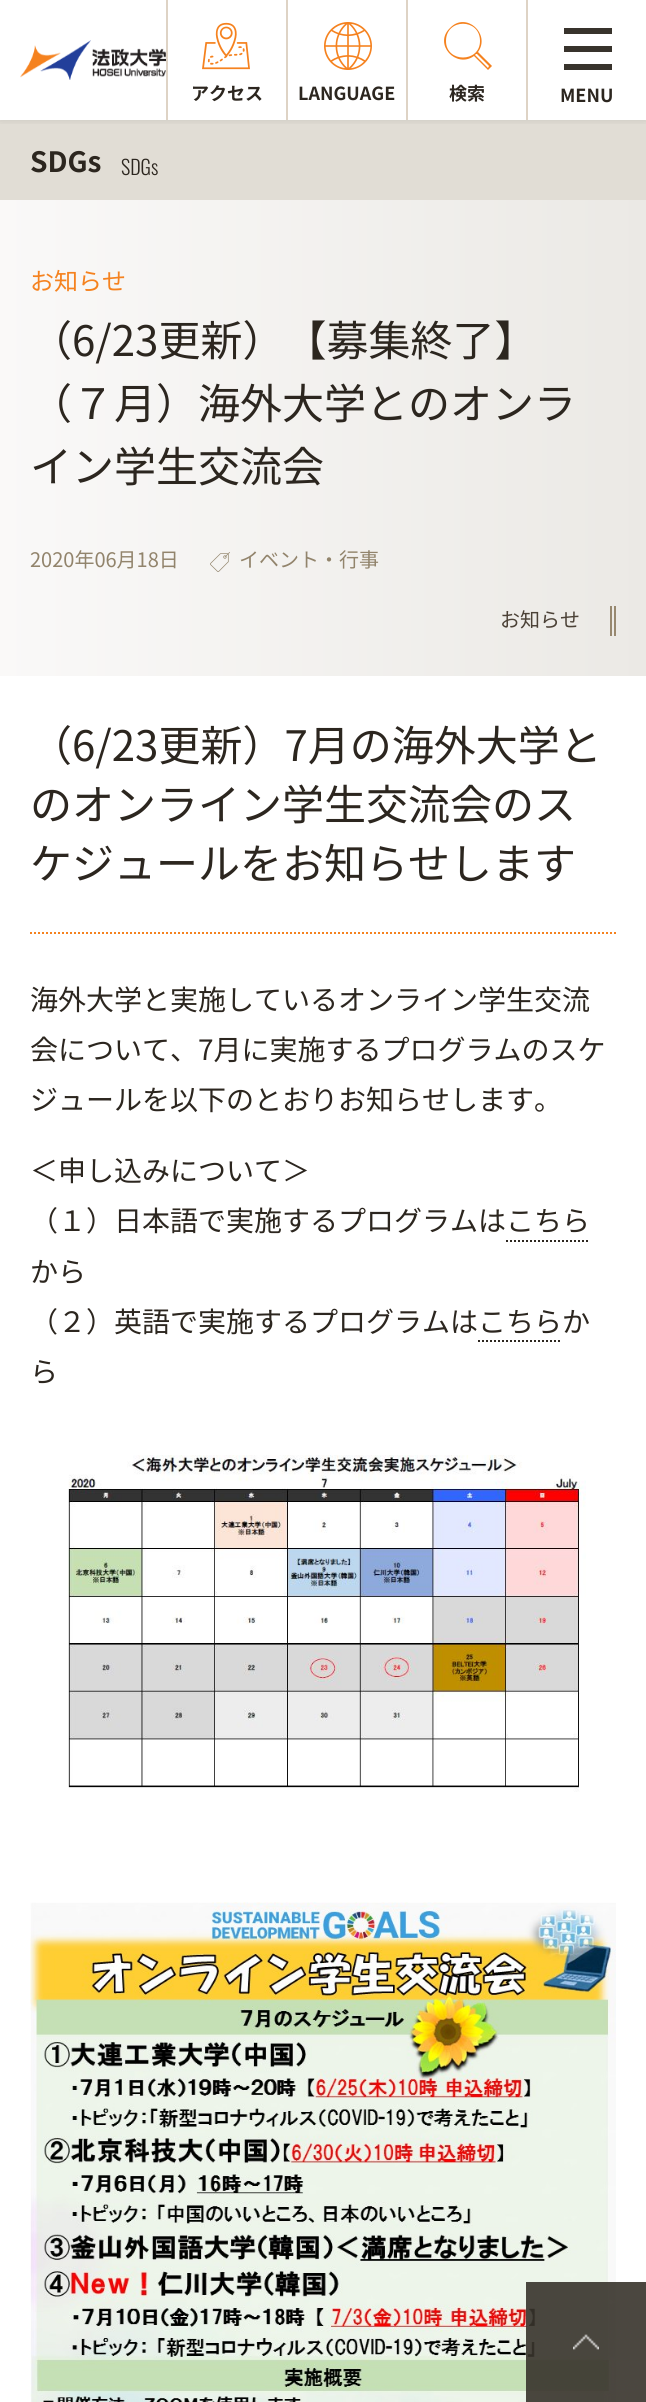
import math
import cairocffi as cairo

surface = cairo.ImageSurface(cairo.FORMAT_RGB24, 646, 2402)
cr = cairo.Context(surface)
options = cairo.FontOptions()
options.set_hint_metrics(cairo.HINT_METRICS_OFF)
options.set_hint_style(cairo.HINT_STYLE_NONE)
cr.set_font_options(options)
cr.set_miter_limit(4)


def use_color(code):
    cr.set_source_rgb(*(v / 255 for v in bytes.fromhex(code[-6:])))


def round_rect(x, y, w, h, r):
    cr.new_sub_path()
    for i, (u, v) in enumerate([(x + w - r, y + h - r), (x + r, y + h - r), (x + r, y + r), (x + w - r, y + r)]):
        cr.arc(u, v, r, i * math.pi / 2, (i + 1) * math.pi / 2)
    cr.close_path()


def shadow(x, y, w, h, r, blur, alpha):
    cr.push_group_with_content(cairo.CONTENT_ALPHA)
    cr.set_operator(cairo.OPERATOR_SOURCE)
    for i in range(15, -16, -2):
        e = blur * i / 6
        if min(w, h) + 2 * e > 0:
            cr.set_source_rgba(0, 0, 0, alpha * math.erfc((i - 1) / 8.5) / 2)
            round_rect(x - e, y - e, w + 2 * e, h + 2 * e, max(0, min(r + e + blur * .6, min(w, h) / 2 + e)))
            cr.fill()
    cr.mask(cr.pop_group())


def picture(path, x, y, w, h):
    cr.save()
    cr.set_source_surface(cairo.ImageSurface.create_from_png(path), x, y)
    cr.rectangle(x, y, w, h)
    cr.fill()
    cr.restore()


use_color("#ffffff")
cr.paint()
use_color("#e1ddd5")
cr.rectangle(0, 120, 646, 80)
cr.fill()
cr.save()
cr.rectangle(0, 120, 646, 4)
cr.clip()
use_color("#000000")
shadow(0, 0, 646, 120, 0, 5, 0.1)
cr.restore()
picture("img1.png", 20, 40, 146, 40)
use_color("#ded3c5")
cr.rectangle(166, 0, 2, 120)
cr.fill()
picture("img2.png", 202, 22, 48, 48)
cr.select_font_face("Noto Sans JP", cairo.FONT_SLANT_NORMAL, cairo.FONT_WEIGHT_BOLD)
cr.set_font_size(18)
use_color("#2c261f")
cr.move_to(191, 100)
cr.show_text("アクセス")
use_color("#ded3c5")
cr.rectangle(286, 0, 2, 120)
cr.fill()
picture("img3.png", 324, 22, 48, 48)
use_color("#2c261f")
cr.move_to(298, 100)
cr.show_text("LANGUAGE")
use_color("#ded3c5")
cr.rectangle(406, 0, 2, 120)
cr.fill()
use_color("#f5821f")
cr.new_path()
cr.move_to(492, 66)
cr.line_to(478, 52)
cr.curve_to(491, 34, 466, 11, 450, 28)
cr.curve_to(433, 44, 456, 69, 474, 56)
cr.line_to(488, 70)
cr.close_path()
cr.move_to(446, 41)
cr.curve_to(446, 18, 480, 18, 480, 41)
cr.curve_to(480, 63, 446, 63, 446, 41)
cr.close_path()
cr.move_to(476, 54)
cr.line_to(477, 54)
cr.line_to(489, 66)
cr.line_to(488, 68)
cr.line_to(475, 55)
cr.close_path()
cr.fill()
use_color("#2c261f")
cr.move_to(449, 100)
cr.show_text("検索")
use_color("#ded3c5")
cr.rectangle(526, 0, 2, 120)
cr.fill()
use_color("#38332c")
cr.rectangle(564, 28, 48, 6)
cr.fill()
cr.rectangle(564, 46, 48, 6)
cr.fill()
cr.rectangle(564, 64, 48, 6)
cr.fill()
use_color("#2c261f")
cr.move_to(560, 102)
cr.show_text("MENU")
cr.set_font_size(28)
cr.move_to(30, 172)
cr.show_text("SDGs")
cr.select_font_face("Oswald Light")
cr.set_font_size(20)
cr.move_to(121, 175)
cr.show_text("SDGs")
gradient = cairo.LinearGradient(646, 438, 0, 438)
gradient.add_color_stop_rgba(0, 0.922, 0.914, 0.898, 1)
gradient.add_color_stop_rgba(1, 0.98, 0.976, 0.973, 1)
cr.set_source(gradient)
cr.rectangle(0, 200, 646, 476)
cr.fill()
cr.select_font_face("Noto Sans JP")
cr.set_font_size(24)
use_color("#f5821f")
cr.move_to(30, 290)
cr.show_text("お知らせ")
cr.set_font_size(42)
use_color("#2c261f")
cr.move_to(30, 356)
cr.show_text("（6/23更新）【募集終了】")
cr.move_to(30, 419)
cr.show_text("（７月）海外大学とのオンラ")
cr.move_to(30, 482)
cr.show_text("イン学生交流会")
cr.set_font_size(20)
use_color("#92846c")
cr.move_to(30, 567)
cr.show_text("2020年06月18日")
picture("img4.png", 210, 552, 20, 20)
cr.move_to(239, 567)
cr.show_text("イベント・行事")
use_color("#4b4136")
cr.move_to(500, 627)
cr.show_text("お知らせ")
use_color("#97886f")
cr.rectangle(610, 606, 2, 30)
cr.fill()
cr.rectangle(614, 606, 2, 30)
cr.fill()
cr.new_path()
cr.move_to(30, 933)
cr.line_to(616, 933)
use_color("#f5821f")
cr.set_dash([2, 2])
cr.stroke()
cr.set_font_size(42)
use_color("#2c261f")
cr.move_to(30, 761)
cr.show_text("（6/23更新）7月の海外大学と")
cr.move_to(30, 820)
cr.show_text("のオンライン学生交流会のス")
cr.move_to(30, 879)
cr.show_text("ケジュールをお知らせします")
cr.set_font_size(28)
cr.move_to(30, 1010)
cr.show_text("海外大学と実施しているオンライン学生交流")
cr.move_to(30, 1060)
cr.show_text("会について、7月に実施するプログラムのスケ")
cr.move_to(30, 1110)
cr.show_text("ジュールを以下のとおりお知らせします。")
cr.move_to(30, 1181)
cr.show_text("＜申し込みについて＞")
cr.move_to(30, 1231)
cr.show_text("（１）日本語で実施するプログラムはこちら")
cr.new_path()
cr.move_to(506, 1241)
cr.line_to(590, 1241)
cr.stroke()
cr.move_to(30, 1282)
cr.show_text("から")
cr.move_to(30, 1332)
cr.show_text("（２）英語で実施するプログラムはこちらか")
cr.new_path()
cr.move_to(478, 1341)
cr.line_to(562, 1341)
cr.stroke()
cr.move_to(30, 1382)
cr.show_text("ら")
picture("img5.png", 68, 1455, 518, 337)
picture("img6.png", 30, 1902, 586, 500)
cr.set_source_rgba(0.22, 0.2, 0.173, 0.9)
cr.rectangle(526, 2282, 120, 120)
cr.fill()
picture("img7.png", 573, 2334, 26, 16)
surface.write_to_png("result.png")
